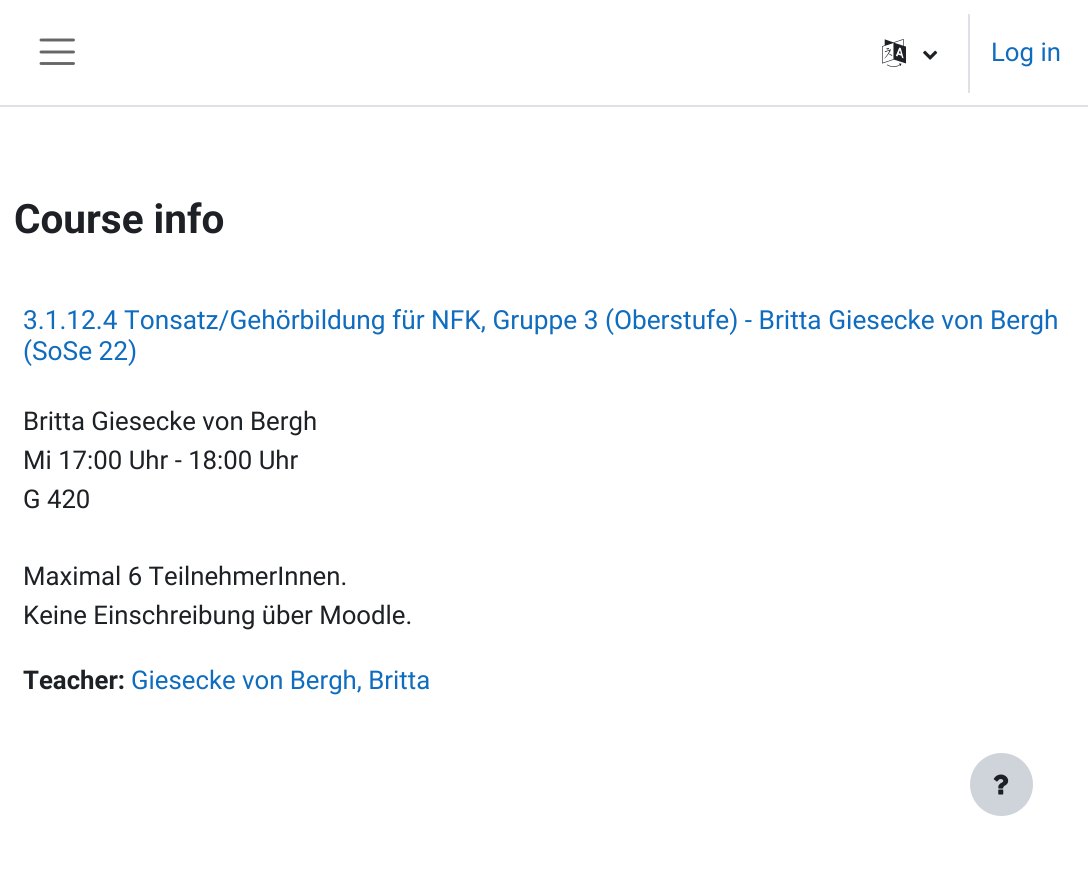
import math
import cairocffi as cairo

surface = cairo.ImageSurface(cairo.FORMAT_RGB24, 1088, 871)
cr = cairo.Context(surface)
options = cairo.FontOptions()
options.set_hint_metrics(cairo.HINT_METRICS_OFF)
options.set_hint_style(cairo.HINT_STYLE_NONE)
cr.set_font_options(options)
cr.set_miter_limit(4)


def use_color(code):
    cr.set_source_rgb(*(v / 255 for v in bytes.fromhex(code[-6:])))


def picture(path, x, y, w, h):
    cr.save()
    cr.set_source_surface(cairo.ImageSurface.create_from_png(path), x, y)
    cr.rectangle(x, y, w, h)
    cr.fill()
    cr.restore()


use_color("#ffffff")
cr.paint()
use_color("#dee2e6")
cr.rectangle(0, 105, 1088, 2)
cr.fill()
cr.new_path()
cr.move_to(41, 40)
cr.line_to(73.5, 40)
cr.move_to(41, 52)
cr.line_to(73.5, 52)
cr.move_to(41, 63.5)
cr.line_to(73.5, 63.5)
use_color("#666666")
cr.set_line_width(2.9)
cr.set_line_cap(cairo.LINE_CAP_ROUND)
cr.stroke()
picture("img1.png", 882, 39, 24, 28)
picture("img2.png", 923, 50, 15, 10)
use_color("#dee2e6")
cr.rectangle(968, 14, 2, 79)
cr.fill()
cr.select_font_face("Roboto")
cr.set_font_size(25.75)
use_color("#0f6cbf")
cr.move_to(991, 61)
cr.show_text("Log in")
cr.select_font_face("Roboto", cairo.FONT_SLANT_NORMAL, cairo.FONT_WEIGHT_BOLD)
cr.set_font_size(40.5)
use_color("#1d2125")
cr.move_to(14, 233)
cr.show_text("Course info")
cr.select_font_face("Roboto")
cr.set_font_size(26.25)
use_color("#0f6cbf")
cr.move_to(23, 329)
cr.show_text("3.1.12.4 Tonsatz/Gehörbildung für NFK, Gruppe 3 (Oberstufe) - Britta Giesecke von Bergh")
cr.move_to(23, 360)
cr.show_text("(SoSe 22)")
cr.set_font_size(25.75)
use_color("#1d2125")
cr.move_to(23, 430)
cr.show_text("Britta Giesecke von Bergh")
cr.move_to(23, 469)
cr.show_text("Mi 17:00 Uhr - 18:00 Uhr")
cr.move_to(23, 508)
cr.show_text("G 420")
cr.move_to(23, 585)
cr.show_text("Maximal 6 TeilnehmerInnen.")
cr.move_to(23, 624)
cr.show_text("Keine Einschreibung über Moodle.")
cr.select_font_face("Roboto", cairo.FONT_SLANT_NORMAL, cairo.FONT_WEIGHT_BOLD)
cr.move_to(23, 689)
cr.show_text("Teacher:")
cr.select_font_face("Roboto")
use_color("#0f6cbf")
cr.move_to(131, 689)
cr.show_text("Giesecke von Bergh, Britta")
use_color("#ced4da")
cr.new_path()
cr.arc(1001.5, 784.5, 31.5, 0, 2 * math.pi)
cr.fill()
picture("img3.png", 993, 774, 16, 21)
surface.write_to_png("result.png")
